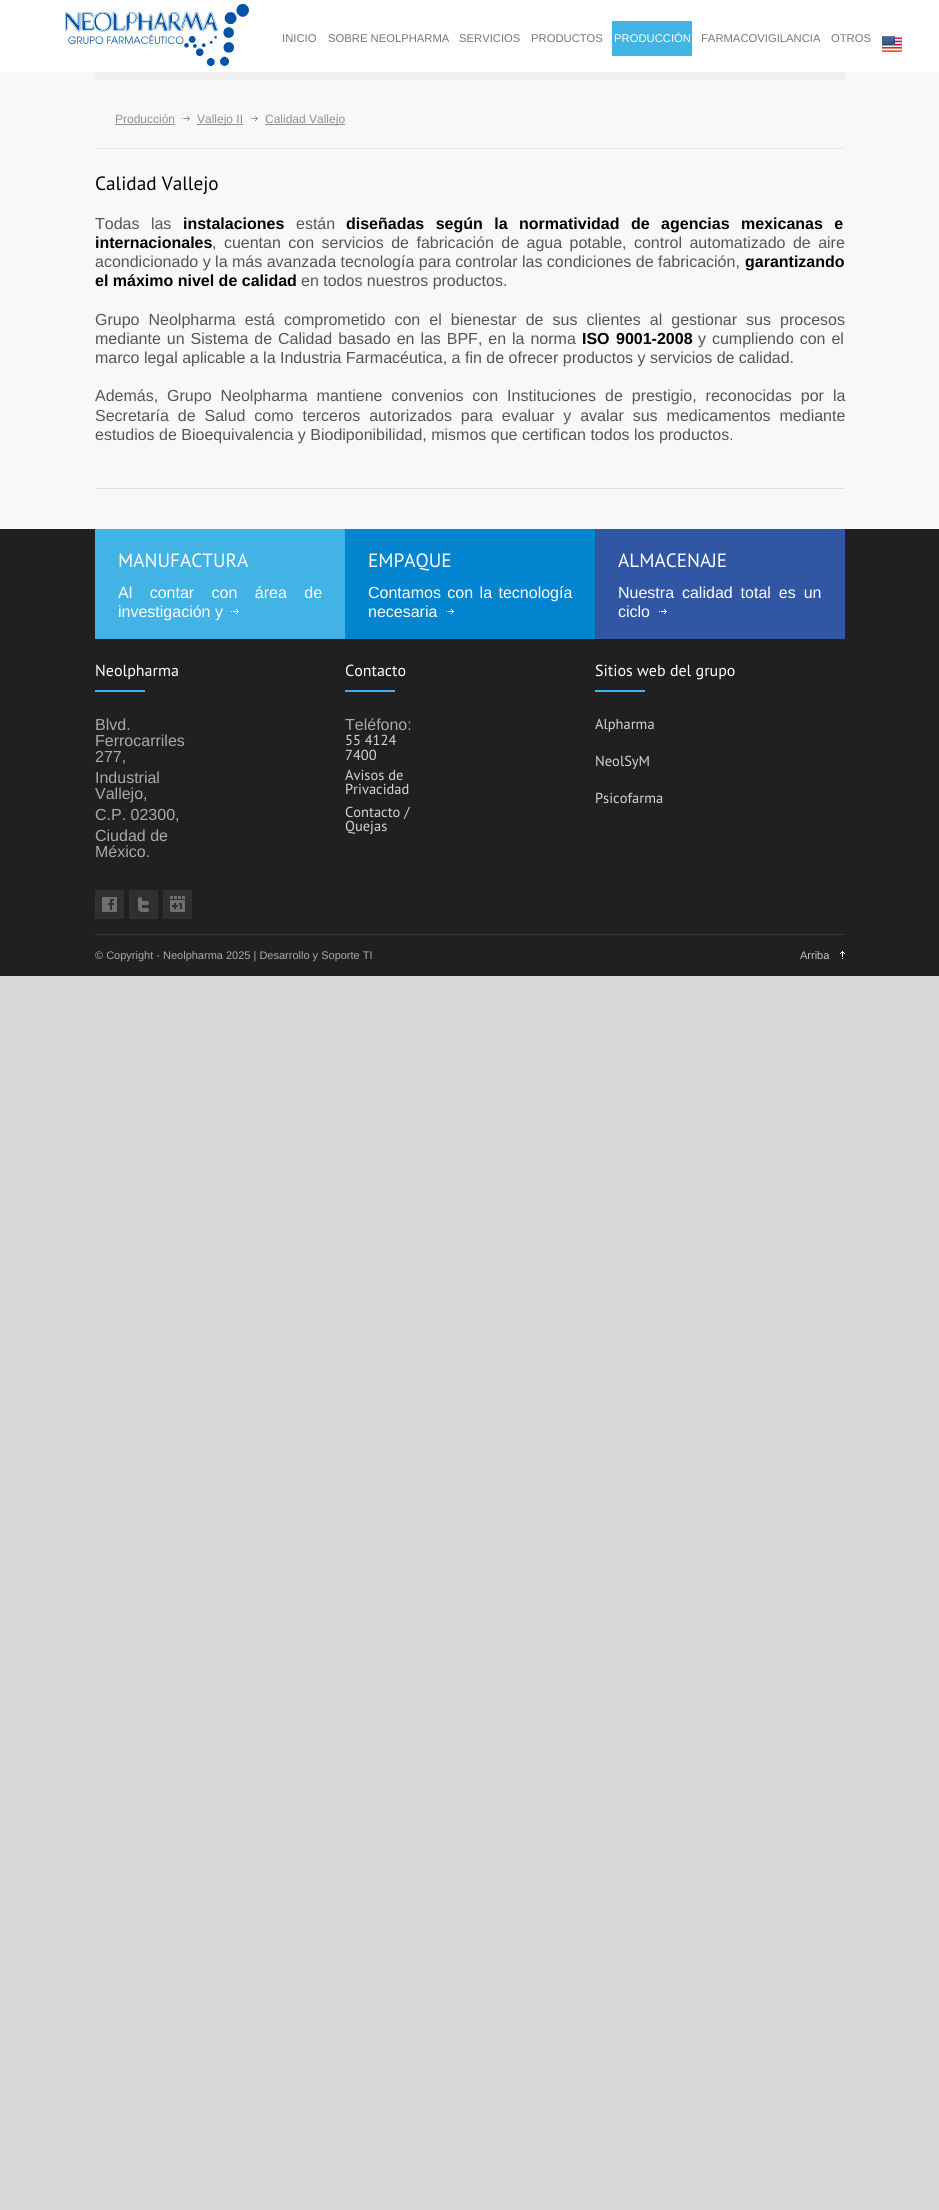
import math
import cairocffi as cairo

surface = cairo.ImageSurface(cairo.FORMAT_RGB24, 939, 2210)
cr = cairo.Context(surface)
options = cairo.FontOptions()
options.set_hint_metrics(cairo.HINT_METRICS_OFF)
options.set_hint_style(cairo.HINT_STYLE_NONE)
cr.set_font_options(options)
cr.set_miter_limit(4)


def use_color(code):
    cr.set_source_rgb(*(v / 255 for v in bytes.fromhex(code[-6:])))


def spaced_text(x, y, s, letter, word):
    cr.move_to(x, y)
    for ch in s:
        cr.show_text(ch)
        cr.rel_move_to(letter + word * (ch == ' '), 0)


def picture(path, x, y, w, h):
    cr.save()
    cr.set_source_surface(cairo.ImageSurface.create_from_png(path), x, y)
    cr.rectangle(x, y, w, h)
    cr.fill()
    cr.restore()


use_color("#d8d8d8")
cr.paint()
use_color("#f8f8f8")
cr.rectangle(0, 72, 939, 457)
cr.fill()
use_color("#ffffff")
cr.rectangle(0, 0, 939, 72)
cr.fill()
picture("img1.png", 65, 4, 184, 62)
cr.select_font_face("Liberation Sans")
cr.set_font_size(11.25)
use_color("#777777")
cr.move_to(282, 42)
cr.show_text("INICIO")
cr.move_to(328, 42)
cr.show_text("SOBRE NEOLPHARMA")
cr.move_to(459, 42)
cr.show_text("SERVICIOS")
cr.move_to(531, 42)
cr.show_text("PRODUCTOS")
use_color("#42b3e5")
cr.rectangle(612, 21, 80, 35)
cr.fill()
use_color("#ffffff")
cr.move_to(614, 42)
cr.show_text("PRODUCCIÓN")
use_color("#777777")
cr.move_to(701, 42)
cr.show_text("FARMACOVIGILANCIA")
cr.move_to(831, 42)
cr.show_text("OTROS")
picture("img2.png", 882, 36, 20, 16)
use_color("#f0f0f0")
cr.rectangle(95, 72, 750, 8)
cr.fill()
use_color("#e8e8e8")
cr.rectangle(95, 148, 750, 1)
cr.fill()
cr.set_font_size(12)
use_color("#909090")
cr.move_to(115, 123)
cr.show_text("Producción")
cr.rectangle(115, 124, 60, 1)
cr.fill()
picture("img3.png", 182, 116, 8, 5)
cr.rectangle(197, 124, 46, 1)
cr.fill()
cr.move_to(197, 123)
cr.show_text("Vallejo II")
picture("img3.png", 250, 116, 8, 5)
cr.rectangle(265, 124, 80, 1)
cr.fill()
cr.move_to(265, 123)
cr.show_text("Calidad Vallejo")
use_color("#e0e0e0")
cr.rectangle(95, 488, 750, 1)
cr.fill()
cr.select_font_face("PT Sans")
cr.set_font_size(19.25)
use_color("#000000")
cr.move_to(95, 190)
cr.show_text("Calidad Vallejo")
cr.select_font_face("Liberation Sans")
cr.set_font_size(16)
use_color("#555555")
spaced_text(95, 229, "Todas las", 0, 7)
cr.select_font_face("Liberation Sans", cairo.FONT_SLANT_NORMAL, cairo.FONT_WEIGHT_BOLD)
use_color("#000000")
cr.move_to(183, 229)
cr.show_text("instalaciones")
cr.select_font_face("Liberation Sans")
use_color("#555555")
cr.move_to(296, 229)
cr.show_text("están")
cr.select_font_face("Liberation Sans", cairo.FONT_SLANT_NORMAL, cairo.FONT_WEIGHT_BOLD)
use_color("#000000")
spaced_text(346, 229, "diseñadas según la normatividad de agencias mexicanas e", 0, 7)
cr.move_to(95, 248)
cr.show_text("internacionales")
cr.select_font_face("Liberation Sans")
use_color("#555555")
spaced_text(212, 248, ", cuentan con servicios de fabricación de agua potable, control automatizado de aire", 0, 3)
cr.move_to(95, 267)
cr.show_text("acondicionado y la más avanzada tecnología para controlar las condiciones de fabricación,")
cr.select_font_face("Liberation Sans", cairo.FONT_SLANT_NORMAL, cairo.FONT_WEIGHT_BOLD)
use_color("#000000")
cr.move_to(745, 267)
cr.show_text("garantizando")
cr.move_to(95, 286)
cr.show_text("el máximo nivel de calidad")
cr.select_font_face("Liberation Sans")
use_color("#555555")
cr.move_to(301, 286)
cr.show_text("en todos nuestros productos.")
spaced_text(95, 325, "Grupo Neolpharma está comprometido con el bienestar de sus clientes al gestionar sus procesos", 0, 4.6)
spaced_text(95, 344, "mediante un Sistema de Calidad basado en las BPF, en la norma", 0, 1.5)
cr.select_font_face("Liberation Sans", cairo.FONT_SLANT_NORMAL, cairo.FONT_WEIGHT_BOLD)
use_color("#000000")
spaced_text(582, 344, "ISO 9001-2008", 0, 2)
cr.select_font_face("Liberation Sans")
use_color("#555555")
spaced_text(698, 344, "y cumpliendo con el", 0, 1.5)
cr.move_to(95, 363)
cr.show_text("marco legal aplicable a la Industria Farmacéutica, a fin de ofrecer productos y servicios de calidad.")
spaced_text(95, 401, "Además, Grupo Neolpharma mantiene convenios con Instituciones de prestigio, reconocidas por la", 0, 4.5)
spaced_text(95, 421, "Secretaría de Salud como terceros autorizados para evaluar y avalar sus medicamentos mediante", 0, 4.5)
cr.move_to(95, 440)
cr.show_text("estudios de Bioequivalencia y Biodiponibilidad, mismos que certifican todos los productos.")
use_color("#202020")
cr.rectangle(0, 529, 939, 447)
cr.fill()
use_color("#42b3e5")
cr.rectangle(95, 529, 250, 110)
cr.fill()
cr.select_font_face("PT Sans")
cr.set_font_size(19.25)
use_color("#ffffff")
cr.move_to(118, 567)
cr.show_text("MANUFACTURA")
cr.select_font_face("Liberation Sans")
cr.set_font_size(16)
spaced_text(118, 598, "Al contar con área de", 0, 13)
cr.move_to(118, 617)
cr.show_text("investigación y")
picture("img4.png", 231, 609, 8, 5)
use_color("#0384ce")
cr.rectangle(345, 529, 250, 110)
cr.fill()
cr.select_font_face("PT Sans")
cr.set_font_size(19.25)
use_color("#ffffff")
cr.move_to(368, 567)
cr.show_text("EMPAQUE")
cr.select_font_face("Liberation Sans")
cr.set_font_size(16)
spaced_text(368, 598, "Contamos con la tecnología", 0, 2)
cr.move_to(368, 617)
cr.show_text("necesaria")
picture("img5.png", 446, 609, 8, 5)
use_color("#3156a3")
cr.rectangle(595, 529, 250, 110)
cr.fill()
cr.select_font_face("PT Sans")
cr.set_font_size(19.25)
use_color("#ffffff")
cr.move_to(618, 567)
cr.show_text("ALMACENAJE")
cr.select_font_face("Liberation Sans")
cr.set_font_size(16)
spaced_text(618, 598, "Nuestra calidad total es un", 0, 3.5)
cr.move_to(618, 617)
cr.show_text("ciclo")
picture("img6.png", 659, 609, 8, 5)
cr.select_font_face("PT Sans")
cr.move_to(95, 676)
cr.show_text("Neolpharma")
use_color("#42b3e5")
cr.rectangle(95, 690, 50, 2)
cr.fill()
cr.select_font_face("Liberation Sans")
use_color("#aaaaaa")
cr.move_to(95, 730)
cr.show_text("Blvd.")
cr.move_to(95, 746)
cr.show_text("Ferrocarriles")
cr.move_to(95, 762)
cr.show_text("277,")
cr.move_to(95, 783)
cr.show_text("Industrial")
cr.move_to(95, 799)
cr.show_text("Vallejo,")
cr.move_to(95, 820)
cr.show_text("C.P. 02300,")
cr.move_to(95, 841)
cr.show_text("Ciudad de")
cr.move_to(95, 857)
cr.show_text("México.")
picture("img7.png", 95, 890, 29, 29)
picture("img8.png", 129, 890, 29, 29)
picture("img9.png", 163, 890, 29, 29)
cr.select_font_face("PT Sans")
use_color("#ffffff")
cr.move_to(345, 676)
cr.show_text("Contacto")
use_color("#42b3e5")
cr.rectangle(345, 690, 50, 2)
cr.fill()
cr.select_font_face("Liberation Sans")
use_color("#aaaaaa")
cr.move_to(345, 730)
cr.show_text("Teléfono:")
cr.select_font_face("PT Sans")
cr.set_font_size(14.5)
use_color("#d5d5d5")
cr.move_to(345, 745)
cr.show_text("55 4124")
cr.move_to(345, 760)
cr.show_text("7400")
cr.move_to(345, 780)
cr.show_text("Avisos de")
cr.move_to(345, 794)
cr.show_text("Privacidad")
cr.move_to(345, 817)
cr.show_text("Contacto /")
cr.move_to(345, 831)
cr.show_text("Quejas")
cr.set_font_size(16)
use_color("#ffffff")
cr.move_to(595, 676)
cr.show_text("Sitios web del grupo")
use_color("#42b3e5")
cr.rectangle(595, 690, 50, 2)
cr.fill()
cr.set_font_size(14.5)
use_color("#d5d5d5")
cr.move_to(595, 729)
cr.show_text("Alpharma")
cr.move_to(595, 766)
cr.show_text("NeolSyM")
cr.move_to(595, 803)
cr.show_text("Psicofarma")
use_color("#353535")
cr.rectangle(95, 934, 750, 1)
cr.fill()
cr.select_font_face("Liberation Sans")
cr.set_font_size(11)
use_color("#aaaaaa")
cr.move_to(95, 959)
cr.show_text("© Copyright - Neolpharma 2025 | Desarrollo y Soporte TI")
use_color("#c5c5c5")
cr.move_to(800, 959)
cr.show_text("Arriba")
picture("img10.png", 840, 951, 5, 8)
surface.write_to_png("result.png")
